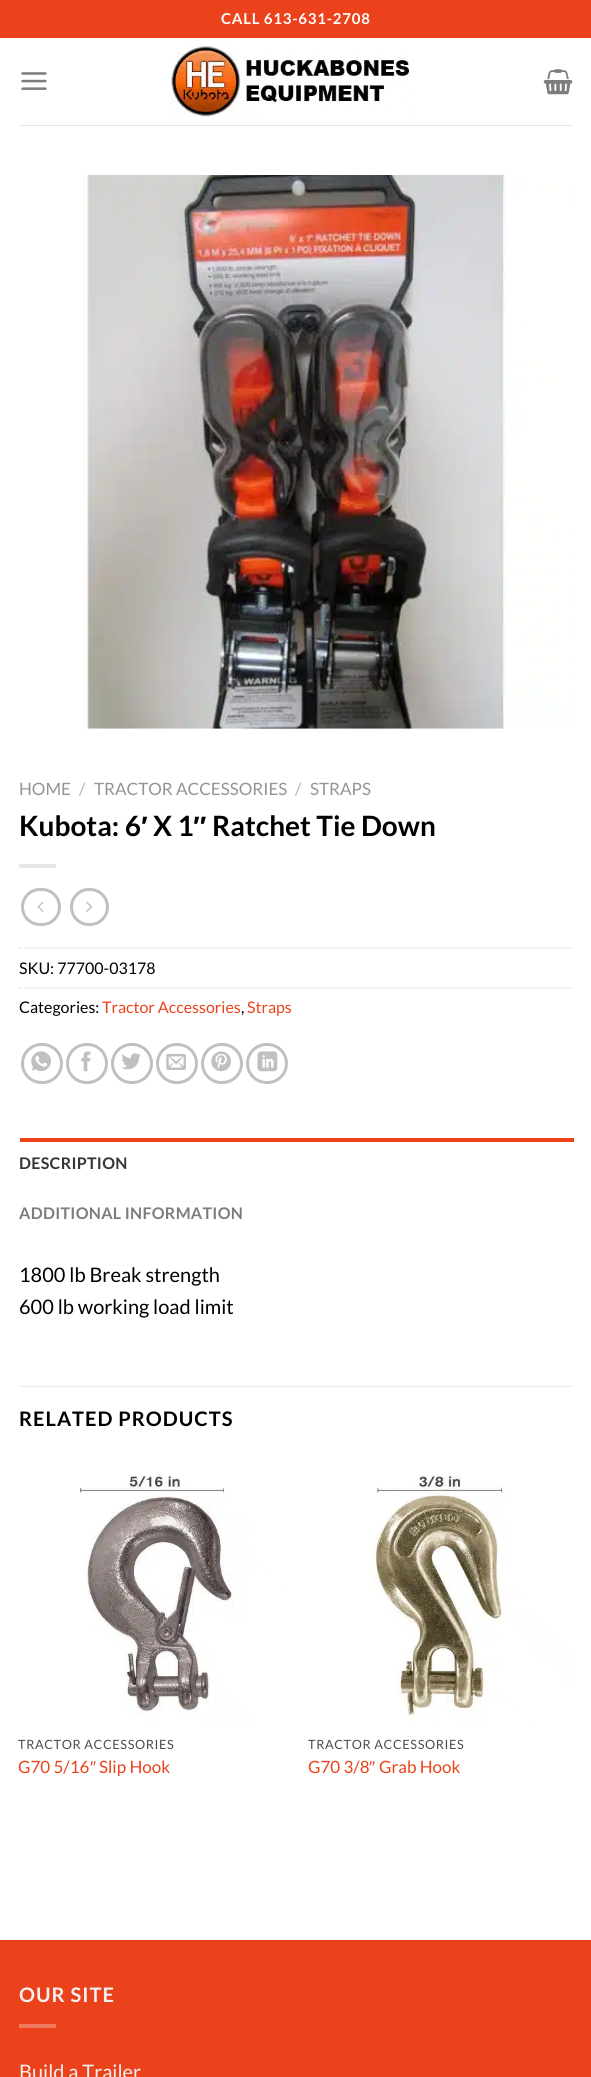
import math
import cairocffi as cairo

surface = cairo.ImageSurface(cairo.FORMAT_RGB24, 591, 2077)
cr = cairo.Context(surface)
options = cairo.FontOptions()
options.set_hint_metrics(cairo.HINT_METRICS_OFF)
options.set_hint_style(cairo.HINT_STYLE_NONE)
cr.set_font_options(options)
cr.set_miter_limit(4)


def use_color(code):
    cr.set_source_rgb(*(v / 255 for v in bytes.fromhex(code[-6:])))


def spaced_text(x, y, s, letter, word):
    cr.move_to(x, y)
    for ch in s:
        cr.show_text(ch)
        cr.rel_move_to(letter + word * (ch == ' '), 0)


def round_rect(x, y, w, h, r):
    cr.new_sub_path()
    for i, (u, v) in enumerate([(x + w - r, y + h - r), (x + r, y + h - r), (x + r, y + r), (x + w - r, y + r)]):
        cr.arc(u, v, r, i * math.pi / 2, (i + 1) * math.pi / 2)
    cr.close_path()


def picture(path, x, y, w, h):
    cr.save()
    cr.set_source_surface(cairo.ImageSurface.create_from_png(path), x, y)
    cr.rectangle(x, y, w, h)
    cr.fill()
    cr.restore()


use_color("#ffffff")
cr.paint()
use_color("#eb421b")
cr.rectangle(0, 0, 591, 38)
cr.fill()
cr.select_font_face("Lato", cairo.FONT_SLANT_NORMAL, cairo.FONT_WEIGHT_BOLD)
cr.set_font_size(15)
use_color("#ffffff")
spaced_text(221, 24, "CALL 613-631-2708", 0.75, 0)
picture("img1.png", 21, 72, 26, 18)
picture("img2.png", 171, 46, 245, 71)
picture("img3.png", 543, 69, 30, 26)
use_color("#e6e6e6")
cr.rectangle(19, 125, 554, 1)
cr.fill()
picture("img4.png", 83, 175, 489, 554)
cr.select_font_face("Lato")
cr.set_font_size(17)
use_color("#949494")
cr.move_to(19, 795)
cr.show_text("HOME")
use_color("#b2b2b2")
cr.move_to(79, 795)
cr.show_text("/")
use_color("#949494")
cr.move_to(94, 795)
cr.show_text("TRACTOR ACCESSORIES")
use_color("#b2b2b2")
cr.move_to(295, 795)
cr.show_text("/")
use_color("#949494")
cr.move_to(310, 795)
cr.show_text("STRAPS")
cr.select_font_face("Lato", cairo.FONT_SLANT_NORMAL, cairo.FONT_WEIGHT_BOLD)
cr.set_font_size(28)
use_color("#000000")
cr.move_to(19, 836)
cr.show_text("Kubota: 6")
cr.select_font_face("Liberation Sans", cairo.FONT_SLANT_NORMAL, cairo.FONT_WEIGHT_BOLD)
cr.move_to(141, 836)
cr.show_text("′")
cr.select_font_face("Lato", cairo.FONT_SLANT_NORMAL, cairo.FONT_WEIGHT_BOLD)
cr.move_to(153, 836)
cr.show_text("X 1")
cr.select_font_face("Liberation Sans", cairo.FONT_SLANT_NORMAL, cairo.FONT_WEIGHT_BOLD)
cr.move_to(193, 836)
cr.show_text("″")
cr.select_font_face("Lato", cairo.FONT_SLANT_NORMAL, cairo.FONT_WEIGHT_BOLD)
cr.move_to(212, 836)
cr.show_text("Ratchet Tie Down")
use_color("#e6e6e6")
cr.rectangle(19, 864, 37, 4)
cr.fill()
round_rect(22.5, 889.5, 37, 35, 17.5)
use_color("#c0c0c0")
cr.set_line_width(3)
cr.stroke()
picture("img5.png", 37, 901, 7, 11)
round_rect(71.5, 889.5, 36, 35, 17.5)
cr.stroke()
picture("img6.png", 86, 901, 7, 11)
cr.new_path()
cr.move_to(19, 948)
cr.line_to(572.5, 948)
use_color("#dddddd")
cr.set_line_width(1.2)
cr.set_dash([1.25, 1.25])
cr.stroke()
cr.select_font_face("Lato")
cr.set_font_size(16)
use_color("#000000")
cr.move_to(19, 974)
cr.show_text("SKU: 77700-03178")
cr.new_path()
cr.move_to(19, 988)
cr.line_to(572.5, 988)
use_color("#dddddd")
cr.stroke()
use_color("#000000")
cr.move_to(19, 1013)
cr.show_text("Categories:")
use_color("#eb421b")
cr.move_to(102, 1013)
cr.show_text("Tractor Accessories")
use_color("#000000")
cr.move_to(241, 1013)
cr.show_text(",")
use_color("#eb421b")
cr.move_to(247, 1013)
cr.show_text("Straps")
round_rect(22.5, 1044.5, 39, 38, 19)
use_color("#c0c0c0")
cr.set_line_width(3)
cr.set_dash([])
cr.stroke()
picture("img7.png", 31, 1051, 20, 20)
round_rect(67.5, 1044.5, 39, 38, 19)
cr.stroke()
picture("img8.png", 81, 1051, 10, 21)
round_rect(112.5, 1044.5, 39, 38, 19)
cr.stroke()
picture("img9.png", 121, 1053, 20, 17)
round_rect(157.5, 1044.5, 39, 38, 19)
cr.stroke()
picture("img10.png", 166, 1053, 20, 17)
round_rect(202.5, 1044.5, 39, 38, 19)
cr.stroke()
picture("img11.png", 211, 1051, 20, 21)
round_rect(247.5, 1044.5, 39, 38, 19)
cr.stroke()
picture("img12.png", 257, 1051, 21, 21)
use_color("#ececec")
cr.rectangle(19, 1138, 1, 1)
cr.fill()
use_color("#eb421b")
cr.rectangle(20, 1138, 554, 4)
cr.fill()
cr.select_font_face("Lato", cairo.FONT_SLANT_NORMAL, cairo.FONT_WEIGHT_BOLD)
use_color("#363636")
spaced_text(19, 1169, "DESCRIPTION", 0.3, 0)
use_color("#7d7d7d")
spaced_text(19, 1219, "ADDITIONAL INFORMATION", 0.3, 0)
cr.select_font_face("Lato")
cr.set_font_size(20)
use_color("#000000")
cr.move_to(19, 1282)
cr.show_text("1800 lb Break strength")
cr.move_to(19, 1314)
cr.show_text("600 lb working load limit")
use_color("#ececec")
cr.rectangle(19, 1386, 554, 1)
cr.fill()
cr.select_font_face("Lato", cairo.FONT_SLANT_NORMAL, cairo.FONT_WEIGHT_BOLD)
use_color("#000000")
spaced_text(19, 1426, "RELATED PRODUCTS", 1, 0)
picture("img13.png", 80, 1475, 203, 248)
cr.select_font_face("Lato")
cr.set_font_size(12.75)
use_color("#4d4d4d")
spaced_text(18, 1749, "TRACTOR ACCESSORIES", 0.6, 0)
cr.set_font_size(17)
use_color("#eb421b")
cr.move_to(18, 1773)
cr.show_text("G70 5/16")
cr.select_font_face("Liberation Sans")
cr.move_to(90, 1773)
cr.show_text("″")
cr.select_font_face("Lato")
cr.move_to(99, 1773)
cr.show_text("Slip Hook")
picture("img14.png", 372, 1475, 200, 248)
cr.set_font_size(12.75)
use_color("#4d4d4d")
spaced_text(308, 1749, "TRACTOR ACCESSORIES", 0.6, 0)
cr.set_font_size(17)
use_color("#eb421b")
cr.move_to(308, 1773)
cr.show_text("G70 3/8")
cr.select_font_face("Liberation Sans")
cr.move_to(369, 1773)
cr.show_text("″")
cr.select_font_face("Lato")
cr.move_to(379, 1773)
cr.show_text("Grab Hook")
cr.rectangle(0, 1941, 591, 136)
cr.fill()
use_color("#df3f1a")
cr.rectangle(0, 1940, 591, 1)
cr.fill()
cr.select_font_face("Lato", cairo.FONT_SLANT_NORMAL, cairo.FONT_WEIGHT_BOLD)
cr.set_font_size(20)
use_color("#f1f1f1")
spaced_text(19, 2002, "OUR SITE", 1, 0)
use_color("#f17b5f")
cr.rectangle(19, 2024, 37, 4)
cr.fill()
cr.select_font_face("Lato")
use_color("#f1f1f1")
cr.move_to(19, 2079)
cr.show_text("Build a Trailer")
surface.write_to_png("result.png")
